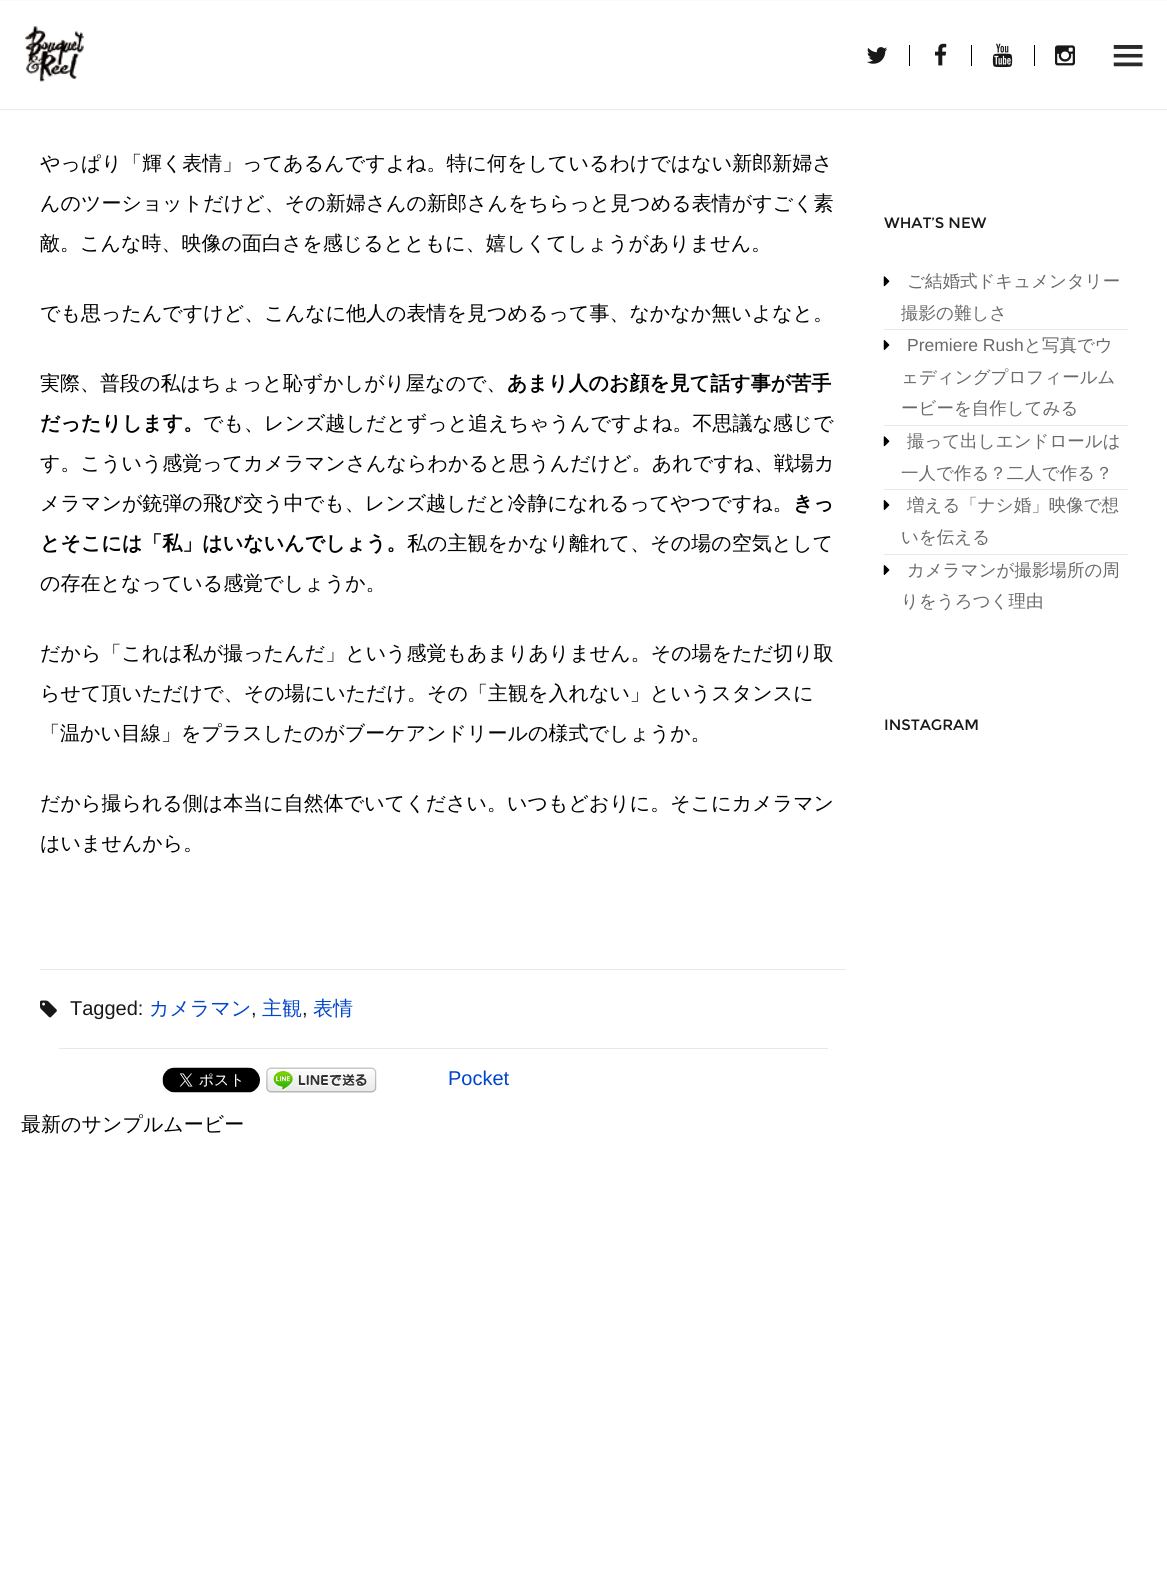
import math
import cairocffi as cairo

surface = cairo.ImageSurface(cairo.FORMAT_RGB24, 1167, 1578)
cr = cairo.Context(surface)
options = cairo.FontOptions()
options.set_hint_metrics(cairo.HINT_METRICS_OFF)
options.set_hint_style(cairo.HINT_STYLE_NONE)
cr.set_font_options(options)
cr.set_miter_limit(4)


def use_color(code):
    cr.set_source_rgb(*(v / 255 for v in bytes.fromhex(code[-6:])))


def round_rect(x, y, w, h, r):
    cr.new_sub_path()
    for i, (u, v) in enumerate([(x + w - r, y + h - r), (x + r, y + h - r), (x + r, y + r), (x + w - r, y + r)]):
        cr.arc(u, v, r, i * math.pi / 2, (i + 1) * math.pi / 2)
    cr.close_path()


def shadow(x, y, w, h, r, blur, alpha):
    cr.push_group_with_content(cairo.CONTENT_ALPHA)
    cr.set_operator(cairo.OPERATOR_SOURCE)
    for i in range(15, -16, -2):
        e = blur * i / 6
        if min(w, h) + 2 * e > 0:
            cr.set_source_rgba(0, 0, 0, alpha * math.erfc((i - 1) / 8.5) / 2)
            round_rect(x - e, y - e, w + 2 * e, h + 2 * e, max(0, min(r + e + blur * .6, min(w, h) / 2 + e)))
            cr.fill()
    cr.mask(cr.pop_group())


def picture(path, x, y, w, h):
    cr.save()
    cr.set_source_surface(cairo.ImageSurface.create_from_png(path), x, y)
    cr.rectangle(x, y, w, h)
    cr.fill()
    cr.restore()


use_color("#ffffff")
cr.paint()
use_color("#323232")
shadow(0, 1, 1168, 109, 0, 0.5, 0.1)
use_color("#ffffff")
cr.rectangle(0, 1, 1167, 108)
cr.fill()
picture("img1.png", 25, 26, 59, 56)
picture("img2.png", 867, 47, 21, 17)
use_color("#000000")
cr.rectangle(909, 45, 1, 21)
cr.fill()
picture("img3.png", 935, 43, 12, 23)
cr.rectangle(971, 45, 1, 21)
cr.fill()
picture("img4.png", 992, 43, 21, 25)
cr.rectangle(1034, 45, 1, 21)
cr.fill()
picture("img5.png", 1055, 45, 20, 21)
picture("img6.png", 1113, 45, 30, 22)
cr.select_font_face("WenQuanYi Zen Hei Medium")
cr.set_font_size(20)
cr.move_to(40, 170)
cr.show_text("やっぱり「輝く表情」ってあるんですよね。特に何をしているわけではない新郎新婦さ")
cr.move_to(40, 210)
cr.show_text("んのツーショットだけど、その新婦さんの新郎さんをちらっと見つめる表情がすごく素")
cr.move_to(40, 250)
cr.show_text("敵。こんな時、映像の面白さを感じるとともに、嬉しくてしょうがありません。")
cr.move_to(40, 320)
cr.show_text("でも思ったんですけど、こんなに他人の表情を見つめるって事、なかなか無いよなと。")
cr.move_to(40, 390)
cr.show_text("実際、普段の私はちょっと恥ずかしがり屋なので、")
cr.select_font_face("WenQuanYi Zen Hei", cairo.FONT_SLANT_NORMAL, cairo.FONT_WEIGHT_BOLD)
cr.move_to(507, 390)
cr.show_text("あまり人のお顔を見て話す事が苦手")
cr.move_to(40, 430)
cr.show_text("だったりします。")
cr.select_font_face("WenQuanYi Zen Hei Medium")
cr.move_to(203, 430)
cr.show_text("でも、レンズ越しだとずっと追えちゃうんですよね。不思議な感じで")
cr.move_to(40, 470)
cr.show_text("す。こういう感覚ってカメラマンさんならわかると思うんだけど。あれですね、戦場カ")
cr.move_to(40, 510)
cr.show_text("メラマンが銃弾の飛び交う中でも、レンズ越しだと冷静になれるってやつですね。")
cr.select_font_face("WenQuanYi Zen Hei", cairo.FONT_SLANT_NORMAL, cairo.FONT_WEIGHT_BOLD)
cr.move_to(793, 510)
cr.show_text("きっ")
cr.move_to(40, 550)
cr.show_text("とそこには「私」はいないんでしょう。")
cr.select_font_face("WenQuanYi Zen Hei Medium")
cr.move_to(407, 550)
cr.show_text("私の主観をかなり離れて、その場の空気として")
cr.move_to(40, 590)
cr.show_text("の存在となっている感覚でしょうか。")
cr.move_to(40, 660)
cr.show_text("だから「これは私が撮ったんだ」という感覚もあまりありません。その場をただ切り取")
cr.move_to(40, 700)
cr.show_text("らせて頂いただけで、その場にいただけ。その「主観を入れない」というスタンスに")
cr.move_to(40, 740)
cr.show_text("「温かい目線」をプラスしたのがブーケアンドリールの様式でしょうか。")
cr.move_to(40, 810)
cr.show_text("だから撮られる側は本当に自然体でいてください。いつもどおりに。そこにカメラマン")
cr.move_to(40, 850)
cr.show_text("はいませんから。")
use_color("#e8e8e8")
cr.rectangle(40, 969, 806, 1)
cr.fill()
picture("img7.png", 40, 1000, 17, 18)
cr.select_font_face("Liberation Sans")
use_color("#181818")
cr.move_to(70, 1015)
cr.show_text("Tagged:")
cr.select_font_face("WenQuanYi Zen Hei Medium")
use_color("#0044cc")
cr.move_to(149, 1015)
cr.show_text("カメラマン")
cr.select_font_face("Liberation Sans")
use_color("#181818")
cr.move_to(251, 1015)
cr.show_text(",")
cr.select_font_face("WenQuanYi Zen Hei Medium")
use_color("#0044cc")
cr.move_to(262, 1015)
cr.show_text("主観")
cr.select_font_face("Liberation Sans")
use_color("#181818")
cr.move_to(302, 1015)
cr.show_text(",")
cr.select_font_face("WenQuanYi Zen Hei Medium")
use_color("#0044cc")
cr.move_to(313, 1015)
cr.show_text("表情")
use_color("#e8e8e8")
cr.rectangle(59, 1048, 769, 1)
cr.fill()
picture("img8.png", 162, 1067, 98, 26)
picture("img9.png", 266, 1067, 111, 26)
cr.select_font_face("Liberation Sans")
use_color("#0044cc")
cr.move_to(448, 1085)
cr.show_text("Pocket")
cr.select_font_face("WenQuanYi Zen Hei Medium")
use_color("#000000")
cr.move_to(21, 1131)
cr.show_text("最新のサンプルムービー")
cr.select_font_face("Montserrat")
cr.set_font_size(15)
use_color("#181818")
cr.move_to(884, 228)
cr.show_text("WHAT’S NEW")
use_color("#e8e8e8")
cr.rectangle(884, 329, 244, 1)
cr.fill()
picture("img10.png", 883, 276, 7, 11)
cr.select_font_face("WenQuanYi Zen Hei Medium")
cr.set_font_size(17.5)
use_color("#696969")
cr.move_to(907, 287)
cr.show_text("ご結婚式ドキュメンタリー")
cr.move_to(901, 319)
cr.show_text("撮影の難しさ")
use_color("#e8e8e8")
cr.rectangle(884, 425, 244, 1)
cr.fill()
picture("img11.png", 883, 340, 7, 10)
cr.select_font_face("Liberation Sans")
use_color("#696969")
cr.move_to(907, 351)
cr.show_text("Premiere Rush")
cr.select_font_face("WenQuanYi Zen Hei Medium")
cr.move_to(1024, 351)
cr.show_text("と写真でウ")
cr.move_to(901, 383)
cr.show_text("ェディングプロフィールム")
cr.move_to(901, 414)
cr.show_text("ービーを自作してみる")
use_color("#e8e8e8")
cr.rectangle(884, 489, 244, 1)
cr.fill()
picture("img10.png", 883, 436, 7, 11)
use_color("#696969")
cr.move_to(907, 447)
cr.show_text("撮って出しエンドロールは")
cr.move_to(901, 479)
cr.show_text("一人で作る？二人で作る？")
use_color("#e8e8e8")
cr.rectangle(884, 554, 244, 1)
cr.fill()
picture("img11.png", 883, 500, 7, 10)
use_color("#696969")
cr.move_to(907, 511)
cr.show_text("増える「ナシ婚」映像で想")
cr.move_to(901, 543)
cr.show_text("いを伝える")
picture("img11.png", 883, 565, 7, 10)
cr.move_to(907, 576)
cr.show_text("カメラマンが撮影場所の周")
cr.move_to(901, 607)
cr.show_text("りをうろつく理由")
cr.select_font_face("Montserrat")
cr.set_font_size(15)
use_color("#181818")
cr.move_to(884, 730)
cr.show_text("INSTAGRAM")
surface.write_to_png("result.png")
